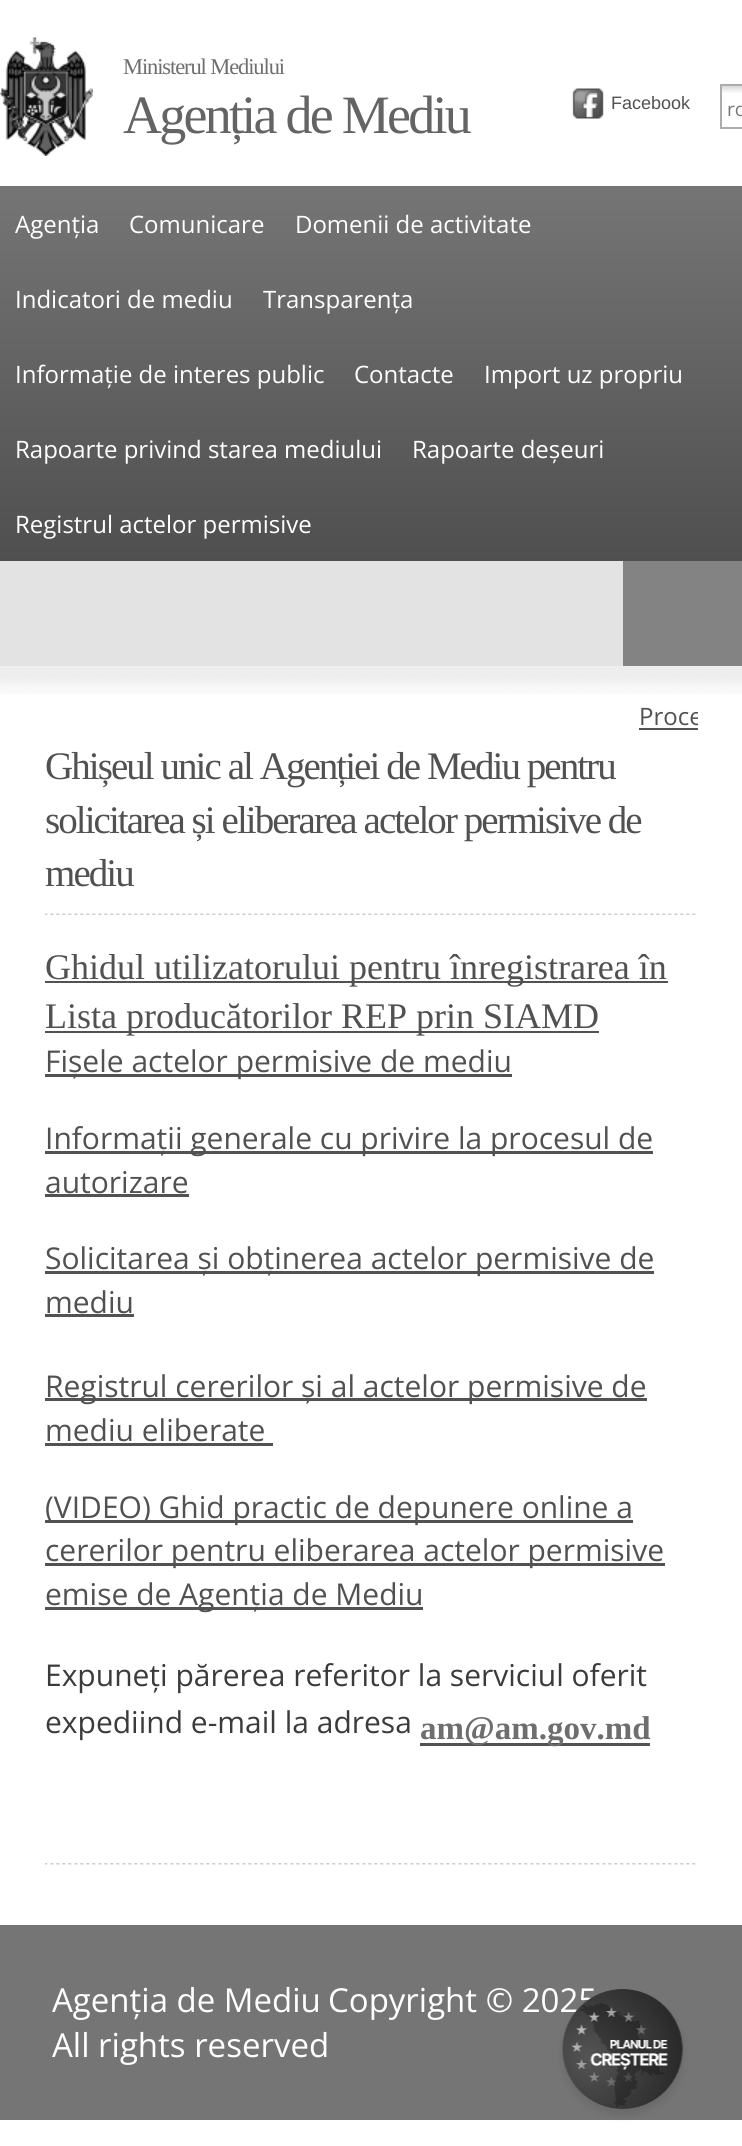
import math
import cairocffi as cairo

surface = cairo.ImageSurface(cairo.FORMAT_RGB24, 742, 2146)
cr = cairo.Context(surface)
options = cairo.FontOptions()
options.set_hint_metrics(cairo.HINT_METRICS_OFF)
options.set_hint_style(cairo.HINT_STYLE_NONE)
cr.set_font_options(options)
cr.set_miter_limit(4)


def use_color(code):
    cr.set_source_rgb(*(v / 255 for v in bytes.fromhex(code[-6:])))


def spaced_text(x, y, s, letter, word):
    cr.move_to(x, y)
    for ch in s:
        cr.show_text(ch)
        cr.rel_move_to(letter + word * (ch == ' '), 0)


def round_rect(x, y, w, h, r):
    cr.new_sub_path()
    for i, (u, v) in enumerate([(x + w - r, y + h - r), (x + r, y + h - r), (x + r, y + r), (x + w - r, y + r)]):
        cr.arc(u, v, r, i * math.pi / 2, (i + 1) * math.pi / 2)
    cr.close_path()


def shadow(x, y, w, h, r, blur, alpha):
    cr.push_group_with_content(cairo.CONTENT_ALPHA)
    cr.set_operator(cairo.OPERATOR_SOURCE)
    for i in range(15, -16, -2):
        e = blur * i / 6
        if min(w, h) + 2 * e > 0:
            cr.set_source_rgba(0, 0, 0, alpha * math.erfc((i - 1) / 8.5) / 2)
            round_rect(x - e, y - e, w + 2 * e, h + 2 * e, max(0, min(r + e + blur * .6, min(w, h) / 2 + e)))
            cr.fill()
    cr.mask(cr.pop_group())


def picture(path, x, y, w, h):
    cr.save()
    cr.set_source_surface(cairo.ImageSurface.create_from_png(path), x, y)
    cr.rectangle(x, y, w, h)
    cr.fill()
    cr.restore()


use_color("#ffffff")
cr.paint()
picture("img1.png", 0, 37, 93, 119)
cr.select_font_face("Liberation Serif")
cr.set_font_size(22.5)
use_color("#6e6e6e")
spaced_text(123, 74, "Ministerul Mediului", -1.1, 0)
cr.set_font_size(54)
use_color("#646464")
spaced_text(123, 133, "Agenția de Mediu", -2.75, 0)
picture("img2.png", 572, 88, 32, 31)
cr.select_font_face("Liberation Sans")
cr.set_font_size(18)
use_color("#515151")
cr.move_to(611, 109)
cr.show_text("Facebook")
picture("img3.png", 722, 86, 20, 7)
cr.rectangle(721, 85, 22, 43)
use_color("#acacac")
cr.stroke()
cr.select_font_face("Open Sans")
cr.set_font_size(19)
use_color("#767676")
cr.move_to(727, 116)
cr.show_text("ro")
gradient = cairo.LinearGradient(371, 186, 371, 561)
gradient.add_color_stop_rgba(0, 0.459, 0.459, 0.459, 1)
gradient.add_color_stop_rgba(1, 0.31, 0.31, 0.31, 1)
cr.set_source(gradient)
cr.rectangle(0, 186, 742, 375)
cr.fill()
cr.set_font_size(24)
use_color("#ffffff")
cr.move_to(15, 233)
cr.show_text("Agenția")
cr.move_to(129, 233)
cr.show_text("Comunicare")
cr.move_to(295, 233)
cr.show_text("Domenii de activitate")
cr.move_to(15, 308)
cr.show_text("Indicatori de mediu")
cr.move_to(263, 308)
cr.show_text("Transparența")
cr.move_to(15, 383)
cr.show_text("Informație de interes public")
cr.move_to(354, 383)
cr.show_text("Contacte")
cr.move_to(484, 383)
cr.show_text("Import uz propriu")
cr.move_to(15, 458)
cr.show_text("Rapoarte privind starea mediului")
cr.move_to(412, 458)
cr.show_text("Rapoarte deșeuri")
cr.move_to(15, 533)
cr.show_text("Registrul actelor permisive")
use_color("#e3e3e3")
cr.rectangle(0, 561, 623, 105)
cr.fill()
use_color("#838383")
cr.rectangle(623, 561, 119, 105)
cr.fill()
picture("img4.png", 0, 666, 742, 28)
cr.save()
cr.rectangle(45, 696, 653, 38)
cr.clip()
use_color("#515151")
cr.move_to(639, 725)
cr.show_text("Proce")
cr.restore()
use_color("#525252")
cr.rectangle(639, 728, 59, 2)
cr.fill()
picture("img5.png", 45, 913, 651, 2)
cr.select_font_face("Liberation Serif")
cr.set_font_size(39)
use_color("#515151")
spaced_text(45, 779, "Ghișeul unic al Agenției de Mediu pentru", -1.95, 0)
spaced_text(45, 833, "solicitarea și eliberarea actelor permisive de", -1.95, 0)
spaced_text(45, 886, "mediu", -1.95, 0)
picture("img6.png", 45, 1863, 651, 2)
use_color("#525252")
cr.rectangle(45, 981, 623, 2)
cr.fill()
cr.set_font_size(36)
use_color("#515151")
cr.move_to(45, 979)
cr.show_text("Ghidul utilizatorului pentru înregistrarea în")
use_color("#525252")
cr.rectangle(45, 1031, 554, 2)
cr.fill()
use_color("#515151")
cr.move_to(45, 1028)
cr.show_text("Lista producătorilor REP prin SIAMD")
use_color("#525252")
cr.rectangle(45, 1074, 467, 3)
cr.fill()
cr.select_font_face("Open Sans")
cr.set_font_size(30)
use_color("#515151")
cr.move_to(45, 1072)
cr.show_text("Fișele actelor permisive de mediu")
use_color("#525252")
cr.rectangle(45, 1151, 608, 3)
cr.fill()
use_color("#515151")
cr.move_to(45, 1149)
cr.show_text("Informații generale cu privire la procesul de")
cr.move_to(45, 1193)
cr.show_text("autorizare")
use_color("#525252")
cr.rectangle(45, 1194, 144, 3)
cr.fill()
cr.rectangle(45, 1271, 609, 3)
cr.fill()
use_color("#515151")
cr.move_to(45, 1269)
cr.show_text("Solicitarea și obținerea actelor permisive de")
cr.move_to(45, 1313)
cr.show_text("mediu")
use_color("#525252")
cr.rectangle(45, 1314, 89, 3)
cr.fill()
cr.rectangle(45, 1398, 602, 3)
cr.fill()
use_color("#515151")
cr.move_to(45, 1397)
cr.show_text("Registrul cererilor și al actelor permisive de")
cr.move_to(45, 1441)
cr.show_text("mediu eliberate")
use_color("#525252")
cr.rectangle(45, 1443, 228, 3)
cr.fill()
cr.rectangle(45, 1520, 588, 3)
cr.fill()
use_color("#515151")
cr.move_to(45, 1518)
cr.show_text("(VIDEO) Ghid practic de depunere online a")
use_color("#525252")
cr.rectangle(45, 1563, 620, 3)
cr.fill()
use_color("#515151")
cr.move_to(45, 1561)
cr.show_text("cererilor pentru eliberarea actelor permisive")
use_color("#525252")
cr.rectangle(45, 1607, 378, 3)
cr.fill()
use_color("#515151")
cr.move_to(45, 1605)
cr.show_text("emise de Agenția de Mediu")
use_color("#3b3b3b")
cr.move_to(45, 1686)
cr.show_text("Expuneți părerea referitor la serviciul oferit")
cr.move_to(45, 1733)
cr.show_text("expediind e-mail la adresa")
use_color("#525252")
cr.rectangle(420, 1743, 230, 3)
cr.fill()
cr.select_font_face("Liberation Serif", cairo.FONT_SLANT_NORMAL, cairo.FONT_WEIGHT_BOLD)
cr.set_font_size(33)
use_color("#6e6e6e")
cr.move_to(420, 1739)
cr.show_text("am@am.gov.md")
use_color("#757575")
cr.rectangle(0, 1925, 742, 195)
cr.fill()
use_color("#000000")
shadow(563, 1995, 120, 120, 60, 4.5, 0.1)
cr.select_font_face("Open Sans")
use_color("#ffffff")
cr.move_to(328, 2012)
cr.show_text("Copyright © 2025")
use_color("#5f5f5f")
cr.new_path()
cr.arc(623, 2049, 60, 0, 2 * math.pi)
cr.fill()
picture("img7.png", 562, 1989, 121, 120)
use_color("#ffffff")
cr.move_to(52, 2012)
cr.show_text("Agenția de Mediu")
cr.move_to(52, 2057)
cr.show_text("All rights reserved")
surface.write_to_png("result.png")
